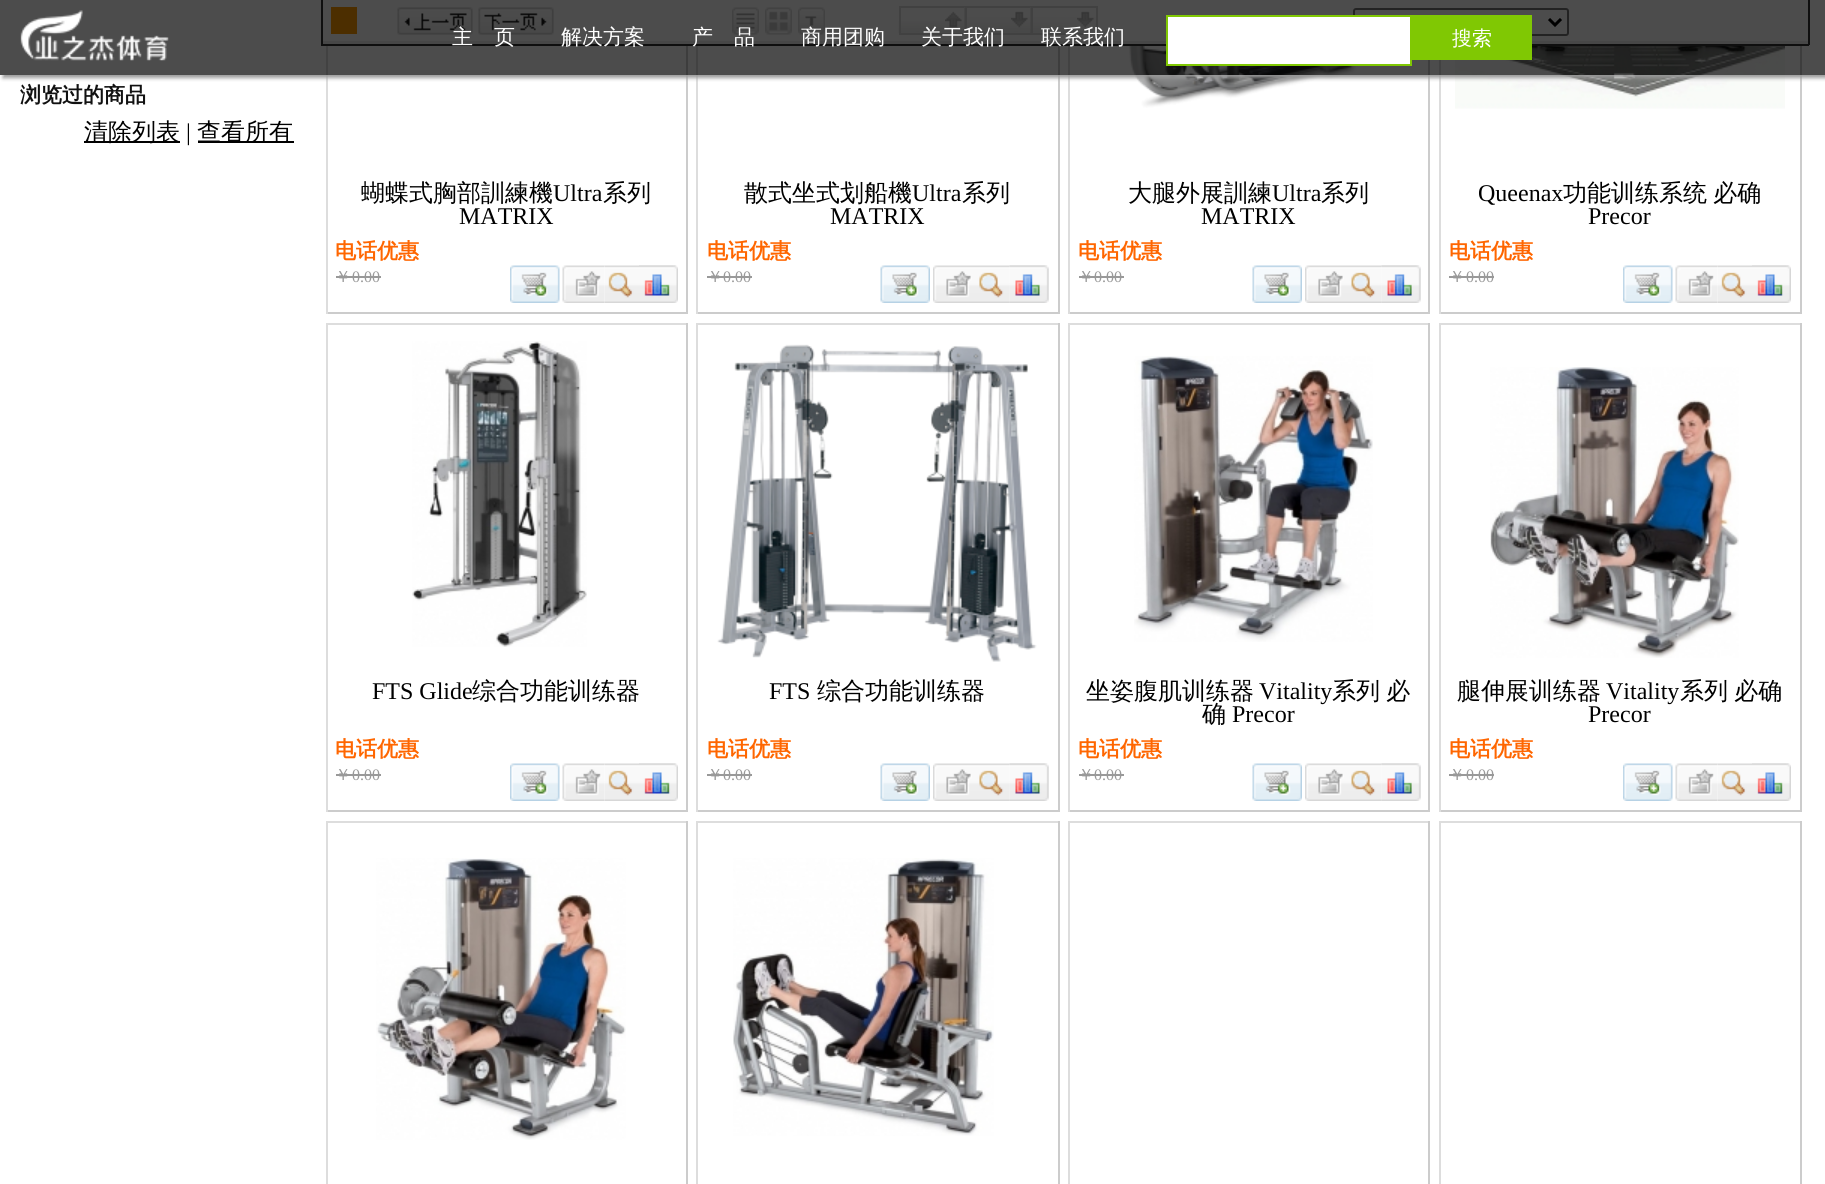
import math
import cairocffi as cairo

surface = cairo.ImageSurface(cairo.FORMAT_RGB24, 1825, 1184)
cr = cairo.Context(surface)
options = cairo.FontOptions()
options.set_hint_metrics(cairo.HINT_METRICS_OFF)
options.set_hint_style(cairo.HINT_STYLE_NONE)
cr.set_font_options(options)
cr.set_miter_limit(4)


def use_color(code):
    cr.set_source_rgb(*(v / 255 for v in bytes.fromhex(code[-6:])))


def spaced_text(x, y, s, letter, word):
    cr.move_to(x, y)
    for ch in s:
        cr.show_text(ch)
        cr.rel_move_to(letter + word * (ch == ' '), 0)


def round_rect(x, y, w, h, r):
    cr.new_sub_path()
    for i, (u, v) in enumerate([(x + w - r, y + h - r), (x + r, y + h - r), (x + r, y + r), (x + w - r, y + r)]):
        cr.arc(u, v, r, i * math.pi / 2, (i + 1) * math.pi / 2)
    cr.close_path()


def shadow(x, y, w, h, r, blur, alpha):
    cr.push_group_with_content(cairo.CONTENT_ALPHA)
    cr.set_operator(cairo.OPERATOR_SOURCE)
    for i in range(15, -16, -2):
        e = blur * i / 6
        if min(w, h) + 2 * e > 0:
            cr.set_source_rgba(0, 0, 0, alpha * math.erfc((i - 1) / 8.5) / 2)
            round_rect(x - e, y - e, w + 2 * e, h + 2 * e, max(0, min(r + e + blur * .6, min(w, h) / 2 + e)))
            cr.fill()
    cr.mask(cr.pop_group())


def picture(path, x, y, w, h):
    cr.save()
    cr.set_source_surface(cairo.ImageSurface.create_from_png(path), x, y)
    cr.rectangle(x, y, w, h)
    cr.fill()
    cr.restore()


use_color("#ffffff")
cr.paint()
use_color("#333333")
cr.rectangle(1808, 0, 2, 45)
cr.fill()
cr.rectangle(321, 44, 1488, 2)
cr.fill()
cr.rectangle(321, 0, 2, 45)
cr.fill()
use_color("#efefef")
cr.rectangle(323, 41, 1485, 3)
cr.fill()
use_color("#ff9900")
cr.rectangle(331, 7, 26, 27)
cr.fill()
picture("img2.png", 397, 7, 76, 28)
picture("img3.png", 478, 7, 76, 28)
picture("img4.png", 732, 7, 27, 28)
picture("img5.png", 765, 7, 27, 28)
picture("img6.png", 798, 7, 27, 28)
picture("img7.png", 898, 21, 66, 12)
cr.rectangle(900, 7, 65, 27)
use_color("#d9d9d9")
cr.stroke()
picture("img8.png", 945, 11, 17, 17)
picture("img9.png", 964, 7, 66, 27)
cr.rectangle(966, 7, 65, 27)
cr.stroke()
picture("img10.png", 1011, 11, 17, 17)
picture("img11.png", 1030, 7, 66, 27)
cr.rectangle(1032, 7, 65, 27)
cr.stroke()
picture("img12.png", 1077, 11, 17, 17)
round_rect(1354, 9, 214, 26, 2)
use_color("#767676")
cr.stroke()
cr.new_path()
cr.move_to(1549, 19)
cr.line_to(1555, 25)
cr.line_to(1561, 19)
use_color("#000000")
cr.set_line_width(3)
cr.stroke()
use_color("#cccccc")
cr.rectangle(686, 46, 2, 268)
cr.fill()
cr.rectangle(326, 312, 361, 2)
cr.fill()
use_color("#dddddd")
cr.rectangle(326, 46, 2, 268)
cr.fill()
use_color("#cccccc")
cr.rectangle(1058, 46, 2, 268)
cr.fill()
cr.rectangle(696, 312, 363, 2)
cr.fill()
use_color("#dddddd")
cr.rectangle(696, 46, 2, 268)
cr.fill()
use_color("#cccccc")
cr.rectangle(1428, 60, 2, 254)
cr.fill()
cr.rectangle(1068, 312, 362, 2)
cr.fill()
use_color("#dddddd")
cr.rectangle(1068, 46, 2, 268)
cr.fill()
picture("img23.png", 1127, 46, 231, 62)
use_color("#cccccc")
cr.rectangle(1800, 46, 2, 268)
cr.fill()
cr.rectangle(1439, 312, 363, 2)
cr.fill()
use_color("#dddddd")
cr.rectangle(1439, 60, 2, 254)
cr.fill()
picture("img27.png", 1455, 46, 330, 63)
cr.save()
cr.rectangle(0, 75, 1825, 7)
cr.clip()
use_color("#999999")
shadow(3, 3, 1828, 75, 0, 2, 1)
cr.restore()
cr.set_source_rgba(0, 0, 0, 0.7)
cr.rectangle(0, 0, 1825, 75)
cr.fill()
picture("img1.png", 20, 10, 149, 51)
cr.select_font_face("WenQuanYi Zen Hei Medium")
cr.set_font_size(21)
use_color("#ffffff")
cr.move_to(452, 44)
cr.show_text("主")
cr.move_to(494, 44)
cr.show_text("页")
cr.move_to(561, 44)
cr.show_text("解决方案")
cr.move_to(692, 44)
cr.show_text("产")
cr.move_to(734, 44)
cr.show_text("品")
cr.move_to(801, 44)
cr.show_text("商用团购")
cr.move_to(921, 44)
cr.show_text("关于我们")
cr.move_to(1041, 44)
cr.show_text("联系我们")
cr.rectangle(1167, 16, 244, 49)
cr.fill_preserve()
use_color("#80c803")
cr.set_line_width(2)
cr.stroke()
cr.rectangle(1412, 15, 120, 45)
cr.fill()
cr.set_font_size(20)
use_color("#ffffff")
cr.move_to(1452, 45)
cr.show_text("搜索")
cr.select_font_face("WenQuanYi Zen Hei", cairo.FONT_SLANT_NORMAL, cairo.FONT_WEIGHT_BOLD)
cr.set_font_size(21)
use_color("#111111")
cr.move_to(20, 102)
cr.show_text("浏览过的商品")
use_color("#000000")
cr.rectangle(84, 141, 96, 2)
cr.fill()
cr.select_font_face("WenQuanYi Zen Hei Medium")
cr.set_font_size(24)
cr.move_to(84, 140)
cr.show_text("清除列表")
cr.select_font_face("Liberation Serif")
cr.move_to(186, 140)
cr.show_text("|")
cr.rectangle(198, 141, 96, 2)
cr.fill()
cr.select_font_face("WenQuanYi Zen Hei Medium")
cr.move_to(197, 140)
cr.show_text("查看所有")
cr.move_to(361, 201)
cr.show_text("蝴蝶式胸部訓練機")
cr.select_font_face("Liberation Serif")
cr.move_to(553, 201)
cr.show_text("Ultra")
cr.select_font_face("WenQuanYi Zen Hei Medium")
cr.move_to(603, 201)
cr.show_text("系列")
cr.select_font_face("Liberation Serif")
cr.move_to(459, 224)
cr.show_text("MATRIX")
cr.select_font_face("WenQuanYi Zen Hei", cairo.FONT_SLANT_NORMAL, cairo.FONT_WEIGHT_BOLD)
cr.set_font_size(21)
use_color("#ff6600")
cr.move_to(335, 258)
cr.show_text("电话优惠")
cr.select_font_face("WenQuanYi Zen Hei Medium")
cr.set_font_size(16)
use_color("#999999")
cr.move_to(335, 282)
cr.show_text("￥")
cr.select_font_face("Liberation Serif")
cr.move_to(352, 282)
cr.show_text("0.00")
cr.rectangle(336, 276, 45, 2)
cr.fill()
picture("img13.png", 510, 265, 50, 38)
picture("img14.png", 562, 265, 43, 38)
picture("img15.png", 604, 265, 35, 38)
picture("img16.png", 639, 265, 39, 38)
picture("img17.png", 639, 265, 37, 1)
cr.select_font_face("WenQuanYi Zen Hei Medium")
cr.set_font_size(24)
use_color("#000000")
cr.move_to(744, 201)
cr.show_text("散式坐式划船機")
cr.select_font_face("Liberation Serif")
cr.move_to(912, 201)
cr.show_text("Ultra")
cr.select_font_face("WenQuanYi Zen Hei Medium")
cr.move_to(962, 201)
cr.show_text("系列")
cr.select_font_face("Liberation Serif")
cr.move_to(830, 224)
cr.show_text("MATRIX")
cr.select_font_face("WenQuanYi Zen Hei", cairo.FONT_SLANT_NORMAL, cairo.FONT_WEIGHT_BOLD)
cr.set_font_size(21)
use_color("#ff6600")
cr.move_to(707, 258)
cr.show_text("电话优惠")
cr.select_font_face("WenQuanYi Zen Hei Medium")
cr.set_font_size(16)
use_color("#999999")
cr.move_to(707, 282)
cr.show_text("￥")
cr.select_font_face("Liberation Serif")
cr.move_to(723, 282)
cr.show_text("0.00")
cr.rectangle(707, 276, 45, 2)
cr.fill()
picture("img18.png", 880, 265, 50, 38)
picture("img19.png", 933, 265, 42, 38)
picture("img20.png", 975, 265, 35, 38)
picture("img21.png", 1009, 265, 40, 38)
picture("img22.png", 1009, 265, 40, 38)
cr.select_font_face("WenQuanYi Zen Hei Medium")
cr.set_font_size(24)
use_color("#000000")
cr.move_to(1128, 201)
cr.show_text("大腿外展訓練")
cr.select_font_face("Liberation Serif")
cr.move_to(1272, 201)
cr.show_text("Ultra")
cr.select_font_face("WenQuanYi Zen Hei Medium")
cr.move_to(1321, 201)
cr.show_text("系列")
cr.select_font_face("Liberation Serif")
cr.move_to(1201, 224)
cr.show_text("MATRIX")
cr.select_font_face("WenQuanYi Zen Hei", cairo.FONT_SLANT_NORMAL, cairo.FONT_WEIGHT_BOLD)
cr.set_font_size(21)
use_color("#ff6600")
cr.move_to(1078, 258)
cr.show_text("电话优惠")
cr.select_font_face("WenQuanYi Zen Hei Medium")
cr.set_font_size(16)
use_color("#999999")
cr.move_to(1078, 282)
cr.show_text("￥")
cr.select_font_face("Liberation Serif")
cr.move_to(1094, 282)
cr.show_text("0.00")
cr.rectangle(1079, 276, 45, 2)
cr.fill()
picture("img18.png", 1252, 265, 50, 38)
picture("img19.png", 1305, 265, 42, 38)
picture("img24.png", 1347, 265, 35, 38)
picture("img25.png", 1381, 265, 40, 38)
picture("img26.png", 1381, 265, 40, 38)
cr.set_font_size(24)
use_color("#000000")
cr.move_to(1478, 201)
cr.show_text("Queenax")
cr.select_font_face("WenQuanYi Zen Hei Medium")
spaced_text(1563, 201, "功能训练系统 必确", 0, -1)
cr.select_font_face("Liberation Serif")
cr.move_to(1588, 224)
cr.show_text("Precor")
cr.select_font_face("WenQuanYi Zen Hei", cairo.FONT_SLANT_NORMAL, cairo.FONT_WEIGHT_BOLD)
cr.set_font_size(21)
use_color("#ff6600")
cr.move_to(1449, 258)
cr.show_text("电话优惠")
cr.select_font_face("WenQuanYi Zen Hei Medium")
cr.set_font_size(16)
use_color("#999999")
cr.move_to(1449, 282)
cr.show_text("￥")
cr.select_font_face("Liberation Serif")
cr.move_to(1466, 282)
cr.show_text("0.00")
cr.rectangle(1449, 276, 45, 2)
cr.fill()
picture("img13.png", 1623, 265, 50, 38)
picture("img28.png", 1675, 265, 43, 38)
picture("img29.png", 1717, 265, 35, 38)
picture("img16.png", 1752, 265, 39, 38)
picture("img17.png", 1752, 265, 37, 1)
use_color("#dddddd")
cr.rectangle(326, 323, 361, 2)
cr.fill()
use_color("#cccccc")
cr.rectangle(686, 323, 2, 489)
cr.fill()
cr.rectangle(326, 810, 361, 2)
cr.fill()
use_color("#dddddd")
cr.rectangle(326, 323, 2, 489)
cr.fill()
picture("img30.png", 412, 341, 175, 306)
cr.set_font_size(24)
use_color("#000000")
cr.move_to(372, 699)
cr.show_text("FTS Glide")
cr.select_font_face("WenQuanYi Zen Hei Medium")
cr.move_to(472, 699)
cr.show_text("综合功能训练器")
cr.select_font_face("WenQuanYi Zen Hei", cairo.FONT_SLANT_NORMAL, cairo.FONT_WEIGHT_BOLD)
cr.set_font_size(21)
use_color("#ff6600")
cr.move_to(335, 756)
cr.show_text("电话优惠")
cr.select_font_face("WenQuanYi Zen Hei Medium")
cr.set_font_size(16)
use_color("#999999")
cr.move_to(335, 780)
cr.show_text("￥")
cr.select_font_face("Liberation Serif")
cr.move_to(352, 780)
cr.show_text("0.00")
cr.rectangle(336, 774, 45, 2)
cr.fill()
picture("img13.png", 510, 763, 50, 38)
picture("img14.png", 562, 763, 43, 38)
picture("img15.png", 604, 763, 35, 38)
picture("img16.png", 639, 763, 39, 38)
picture("img17.png", 639, 763, 37, 1)
use_color("#dddddd")
cr.rectangle(696, 323, 363, 2)
cr.fill()
use_color("#cccccc")
cr.rectangle(1058, 323, 2, 489)
cr.fill()
cr.rectangle(696, 810, 363, 2)
cr.fill()
use_color("#dddddd")
cr.rectangle(696, 323, 2, 489)
cr.fill()
picture("img31.png", 717, 344, 320, 318)
cr.set_font_size(24)
use_color("#000000")
cr.move_to(769, 699)
cr.show_text("FTS")
cr.select_font_face("WenQuanYi Zen Hei Medium")
cr.move_to(817, 699)
cr.show_text("综合功能训练器")
cr.select_font_face("WenQuanYi Zen Hei", cairo.FONT_SLANT_NORMAL, cairo.FONT_WEIGHT_BOLD)
cr.set_font_size(21)
use_color("#ff6600")
cr.move_to(707, 756)
cr.show_text("电话优惠")
cr.select_font_face("WenQuanYi Zen Hei Medium")
cr.set_font_size(16)
use_color("#999999")
cr.move_to(707, 780)
cr.show_text("￥")
cr.select_font_face("Liberation Serif")
cr.move_to(723, 780)
cr.show_text("0.00")
cr.rectangle(707, 774, 45, 2)
cr.fill()
picture("img18.png", 880, 763, 50, 38)
picture("img19.png", 933, 763, 42, 38)
picture("img20.png", 975, 763, 35, 38)
picture("img21.png", 1009, 763, 40, 38)
picture("img22.png", 1009, 763, 40, 38)
use_color("#dddddd")
cr.rectangle(1068, 323, 362, 2)
cr.fill()
use_color("#cccccc")
cr.rectangle(1428, 323, 2, 489)
cr.fill()
cr.rectangle(1068, 810, 362, 2)
cr.fill()
use_color("#dddddd")
cr.rectangle(1068, 323, 2, 489)
cr.fill()
picture("img32.png", 1134, 356, 239, 286)
cr.select_font_face("WenQuanYi Zen Hei Medium")
cr.set_font_size(24)
use_color("#000000")
cr.move_to(1086, 699)
cr.show_text("坐姿腹肌训练器")
cr.select_font_face("Liberation Serif")
cr.move_to(1259, 699)
cr.show_text("Vitality")
cr.select_font_face("WenQuanYi Zen Hei Medium")
spaced_text(1332, 699, "系列 必", 0, -1)
cr.move_to(1202, 722)
cr.show_text("确")
cr.select_font_face("Liberation Serif")
cr.move_to(1232, 722)
cr.show_text("Precor")
cr.select_font_face("WenQuanYi Zen Hei", cairo.FONT_SLANT_NORMAL, cairo.FONT_WEIGHT_BOLD)
cr.set_font_size(21)
use_color("#ff6600")
cr.move_to(1078, 756)
cr.show_text("电话优惠")
cr.select_font_face("WenQuanYi Zen Hei Medium")
cr.set_font_size(16)
use_color("#999999")
cr.move_to(1078, 780)
cr.show_text("￥")
cr.select_font_face("Liberation Serif")
cr.move_to(1094, 780)
cr.show_text("0.00")
cr.rectangle(1079, 774, 45, 2)
cr.fill()
picture("img18.png", 1252, 763, 50, 38)
picture("img19.png", 1305, 763, 42, 38)
picture("img24.png", 1347, 763, 35, 38)
picture("img25.png", 1381, 763, 40, 38)
picture("img26.png", 1381, 763, 40, 38)
use_color("#dddddd")
cr.rectangle(1439, 323, 363, 2)
cr.fill()
use_color("#cccccc")
cr.rectangle(1800, 323, 2, 489)
cr.fill()
cr.rectangle(1439, 810, 363, 2)
cr.fill()
use_color("#dddddd")
cr.rectangle(1439, 323, 2, 489)
cr.fill()
picture("img33.png", 1490, 367, 249, 291)
cr.select_font_face("WenQuanYi Zen Hei Medium")
cr.set_font_size(24)
use_color("#000000")
cr.move_to(1457, 699)
cr.show_text("腿伸展训练器")
cr.select_font_face("Liberation Serif")
cr.move_to(1606, 699)
cr.show_text("Vitality")
cr.select_font_face("WenQuanYi Zen Hei Medium")
spaced_text(1680, 699, "系列 必确", 0, -1)
cr.select_font_face("Liberation Serif")
cr.move_to(1588, 722)
cr.show_text("Precor")
cr.select_font_face("WenQuanYi Zen Hei", cairo.FONT_SLANT_NORMAL, cairo.FONT_WEIGHT_BOLD)
cr.set_font_size(21)
use_color("#ff6600")
cr.move_to(1449, 756)
cr.show_text("电话优惠")
cr.select_font_face("WenQuanYi Zen Hei Medium")
cr.set_font_size(16)
use_color("#999999")
cr.move_to(1449, 780)
cr.show_text("￥")
cr.select_font_face("Liberation Serif")
cr.move_to(1466, 780)
cr.show_text("0.00")
cr.rectangle(1449, 774, 45, 2)
cr.fill()
picture("img13.png", 1623, 763, 50, 38)
picture("img28.png", 1675, 763, 43, 38)
picture("img29.png", 1717, 763, 35, 38)
picture("img16.png", 1752, 763, 39, 38)
picture("img17.png", 1752, 763, 37, 1)
use_color("#dddddd")
cr.rectangle(326, 821, 361, 2)
cr.fill()
use_color("#cccccc")
cr.rectangle(686, 821, 2, 363)
cr.fill()
use_color("#dddddd")
cr.rectangle(326, 821, 2, 363)
cr.fill()
picture("img34.png", 376, 858, 250, 282)
cr.rectangle(696, 821, 363, 2)
cr.fill()
use_color("#cccccc")
cr.rectangle(1058, 821, 2, 363)
cr.fill()
use_color("#dddddd")
cr.rectangle(696, 821, 2, 363)
cr.fill()
picture("img35.png", 733, 858, 261, 278)
cr.rectangle(1068, 821, 362, 2)
cr.fill()
use_color("#cccccc")
cr.rectangle(1428, 821, 2, 363)
cr.fill()
use_color("#dddddd")
cr.rectangle(1068, 821, 2, 363)
cr.fill()
cr.rectangle(1439, 821, 363, 2)
cr.fill()
use_color("#cccccc")
cr.rectangle(1800, 821, 2, 363)
cr.fill()
use_color("#dddddd")
cr.rectangle(1439, 821, 2, 363)
cr.fill()
surface.write_to_png("result.png")
